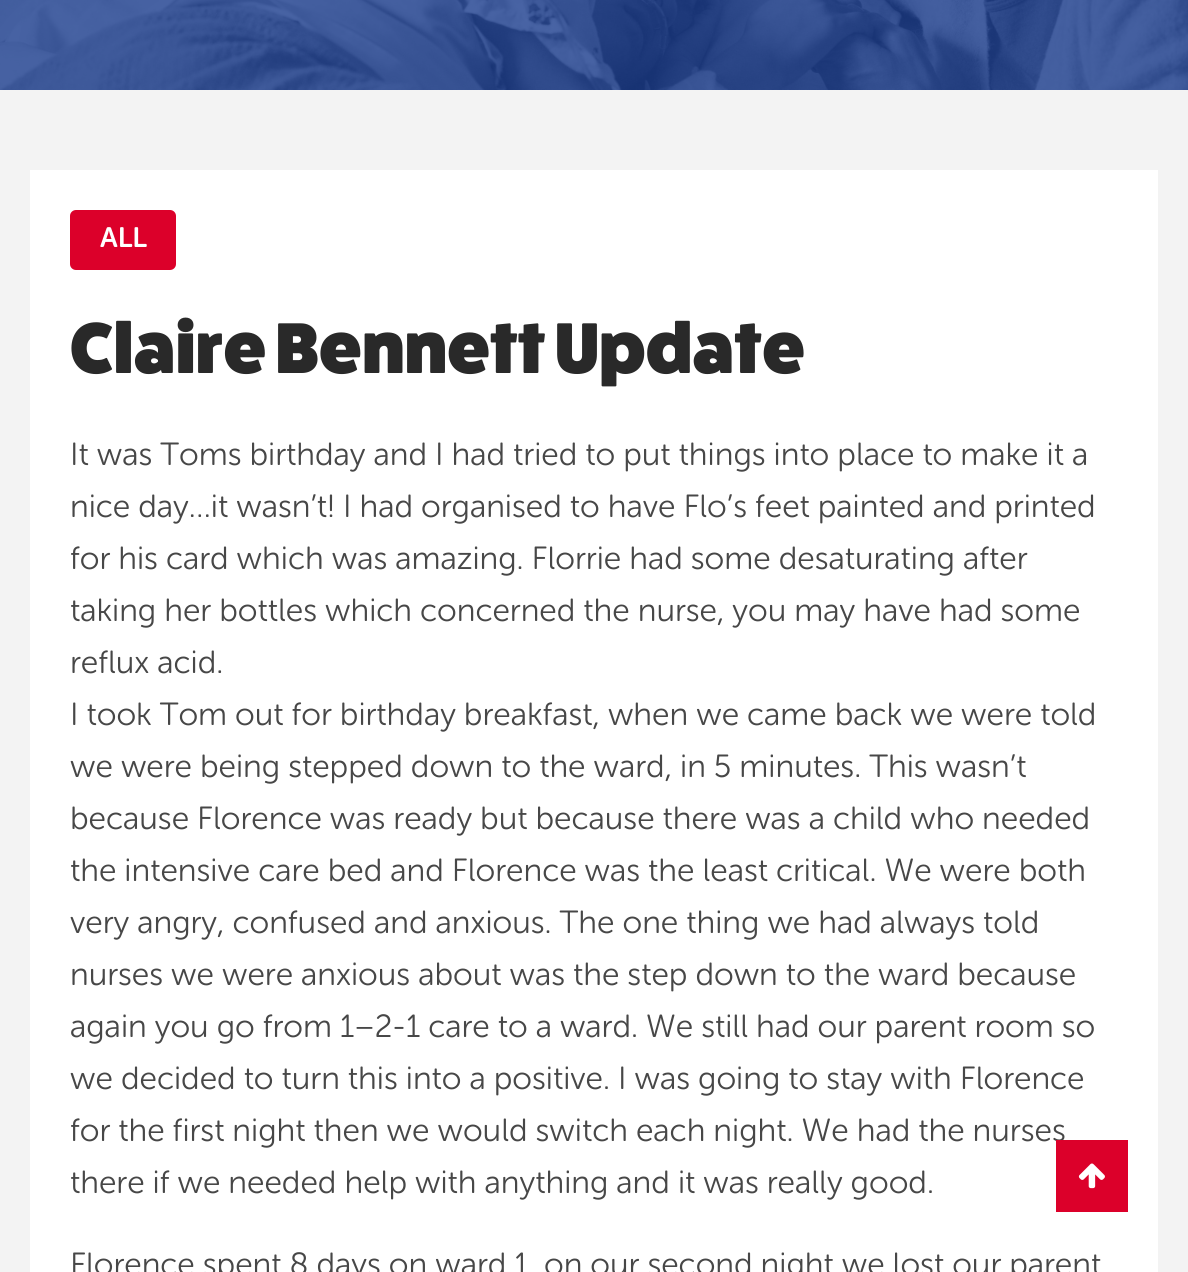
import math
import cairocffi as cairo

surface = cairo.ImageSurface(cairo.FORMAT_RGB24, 1188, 1272)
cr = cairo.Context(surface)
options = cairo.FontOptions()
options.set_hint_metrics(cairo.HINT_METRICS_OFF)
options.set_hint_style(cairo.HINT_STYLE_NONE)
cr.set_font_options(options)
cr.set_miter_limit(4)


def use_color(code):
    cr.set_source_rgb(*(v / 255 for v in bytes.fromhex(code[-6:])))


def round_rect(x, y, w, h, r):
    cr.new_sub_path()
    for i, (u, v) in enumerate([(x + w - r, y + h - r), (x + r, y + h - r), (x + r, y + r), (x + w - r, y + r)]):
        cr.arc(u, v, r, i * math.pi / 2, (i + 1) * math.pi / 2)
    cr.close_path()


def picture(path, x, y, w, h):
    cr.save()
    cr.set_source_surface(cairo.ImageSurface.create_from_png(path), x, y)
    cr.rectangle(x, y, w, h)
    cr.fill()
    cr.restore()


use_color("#f3f3f3")
cr.paint()
picture("img1.png", 0, 0, 1188, 90)
use_color("#ffffff")
cr.rectangle(30, 170, 1128, 1102)
cr.fill()
use_color("#dc002a")
round_rect(70, 210, 106, 60, 6)
cr.fill()
cr.select_font_face("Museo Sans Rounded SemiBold")
cr.set_font_size(28)
use_color("#ffffff")
cr.move_to(100, 247)
cr.show_text("ALL")
cr.select_font_face("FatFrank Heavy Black")
cr.set_font_size(72)
use_color("#292929")
cr.move_to(70, 373)
cr.show_text("Claire Bennett Update")
cr.select_font_face("Museo Sans Rounded Light")
cr.set_font_size(32)
use_color("#474747")
cr.move_to(70, 465)
cr.show_text("It was Toms birthday and I had tried to put things into place to make it a")
cr.move_to(70, 517)
cr.show_text("nice day…it wasn’t! I had organised to have Flo’s feet painted and printed")
cr.move_to(70, 569)
cr.show_text("for his card which was amazing. Florrie had some desaturating after")
cr.move_to(70, 621)
cr.show_text("taking her bottles which concerned the nurse, you may have had some")
cr.move_to(70, 673)
cr.show_text("reflux acid.")
cr.move_to(70, 725)
cr.show_text("I took Tom out for birthday breakfast, when we came back we were told")
cr.move_to(70, 777)
cr.show_text("we were being stepped down to the ward, in 5 minutes. This wasn’t")
cr.move_to(70, 829)
cr.show_text("because Florence was ready but because there was a child who needed")
cr.move_to(70, 881)
cr.show_text("the intensive care bed and Florence was the least critical. We were both")
cr.move_to(70, 933)
cr.show_text("very angry, confused and anxious. The one thing we had always told")
cr.move_to(70, 985)
cr.show_text("nurses we were anxious about was the step down to the ward because")
cr.move_to(70, 1037)
cr.show_text("again you go from 1–2-1 care to a ward. We still had our parent room so")
cr.move_to(70, 1089)
cr.show_text("we decided to turn this into a positive. I was going to stay with Florence")
cr.move_to(70, 1141)
cr.show_text("for the first night then we would switch each night. We had the nurses")
cr.move_to(70, 1193)
cr.show_text("there if we needed help with anything and it was really good.")
cr.move_to(70, 1275)
cr.show_text("Florence spent 8 days on ward 1, on our second night we lost our parent")
use_color("#dc002a")
cr.rectangle(1056, 1140, 72, 72)
cr.fill()
picture("img2.png", 1078, 1163, 27, 26)
surface.write_to_png("result.png")
